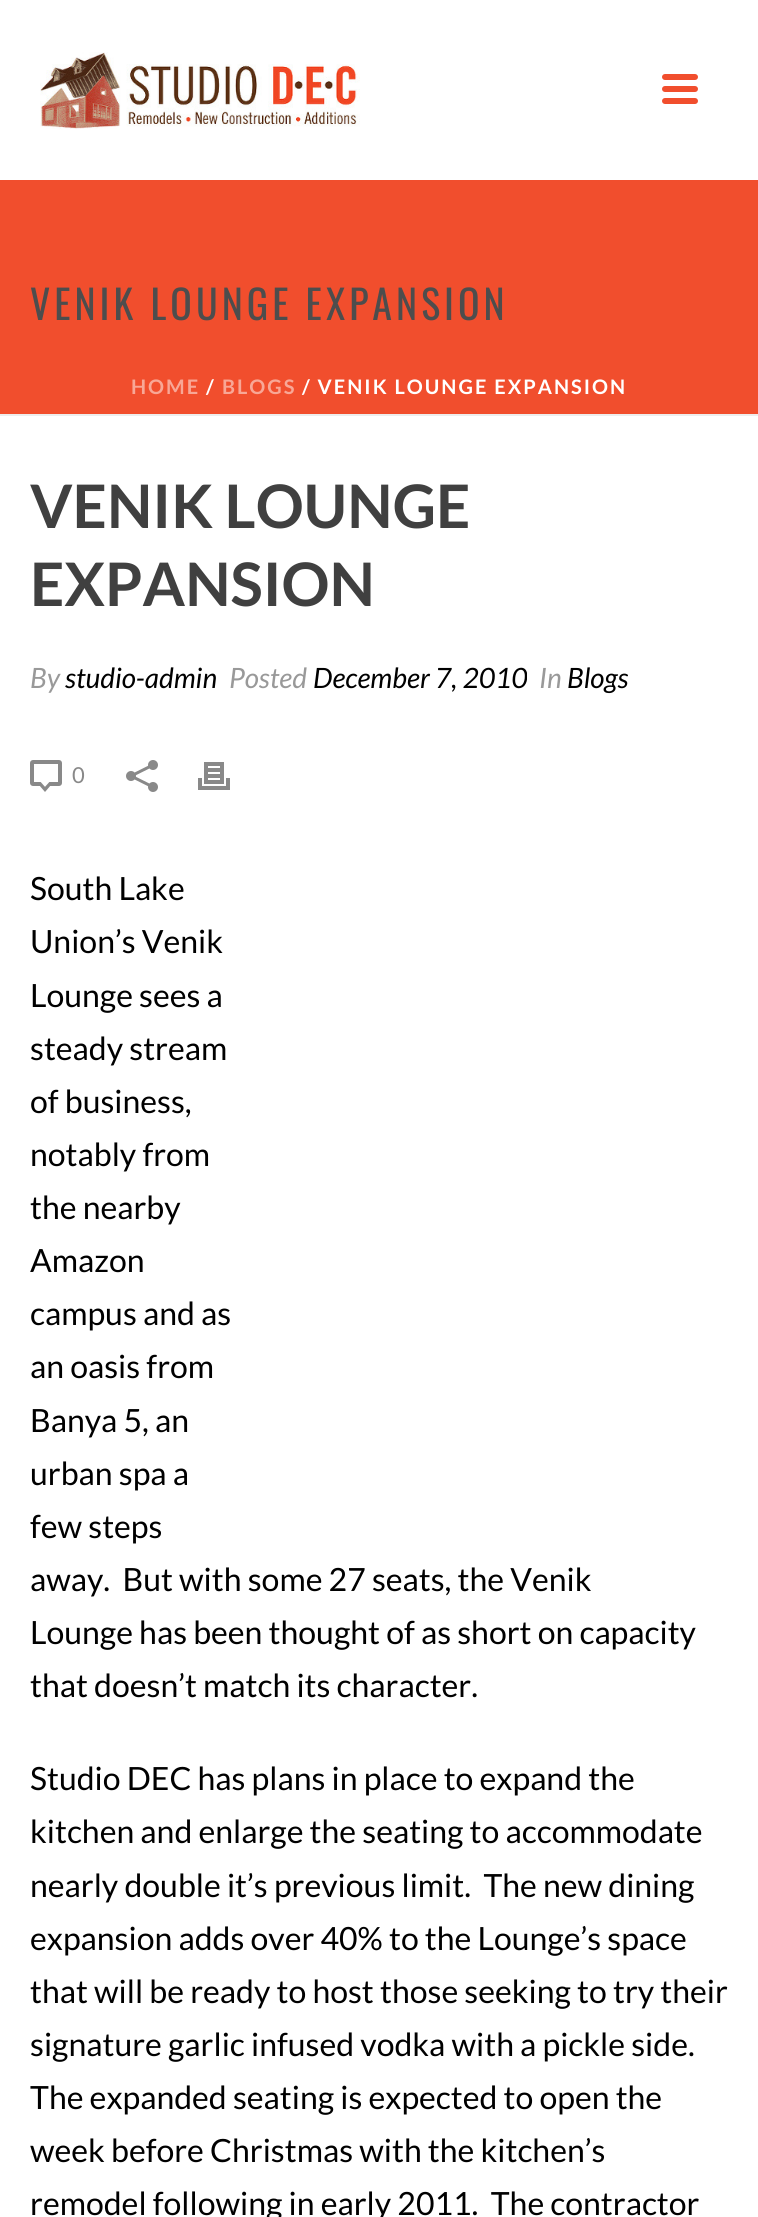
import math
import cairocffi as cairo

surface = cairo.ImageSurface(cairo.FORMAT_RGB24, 758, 2217)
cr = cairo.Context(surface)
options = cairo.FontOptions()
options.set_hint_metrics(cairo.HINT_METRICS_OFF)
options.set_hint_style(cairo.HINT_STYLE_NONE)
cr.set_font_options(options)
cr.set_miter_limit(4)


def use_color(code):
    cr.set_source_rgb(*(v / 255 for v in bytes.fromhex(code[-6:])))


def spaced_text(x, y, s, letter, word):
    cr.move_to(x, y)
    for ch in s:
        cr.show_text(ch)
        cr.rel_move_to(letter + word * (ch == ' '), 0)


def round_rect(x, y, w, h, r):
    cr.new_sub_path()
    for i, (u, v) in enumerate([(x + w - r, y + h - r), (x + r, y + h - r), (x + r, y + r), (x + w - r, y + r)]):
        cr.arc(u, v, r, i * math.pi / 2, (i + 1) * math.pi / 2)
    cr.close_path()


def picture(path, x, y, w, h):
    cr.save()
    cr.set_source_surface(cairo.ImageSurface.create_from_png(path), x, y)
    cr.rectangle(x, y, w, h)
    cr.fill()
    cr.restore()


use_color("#ffffff")
cr.paint()
use_color("#f14e2d")
cr.rectangle(0, 180, 758, 234)
cr.fill()
use_color("#ededed")
cr.rectangle(0, 414, 758, 2)
cr.fill()
picture("img1.png", 40, 52, 320, 78)
use_color("#f14e2d")
round_rect(662, 74, 36, 6, 3)
cr.fill()
round_rect(662, 86, 36, 6, 3)
cr.fill()
round_rect(662, 98, 36, 6, 3)
cr.fill()
cr.select_font_face("Oswald")
cr.set_font_size(40)
use_color("#4d4d4d")
spaced_text(30, 320, "VENIK LOUNGE EXPANSION", 4, 0)
cr.select_font_face("Lato", cairo.FONT_SLANT_NORMAL, cairo.FONT_WEIGHT_BOLD)
cr.set_font_size(20)
use_color("#f8a796")
spaced_text(131, 394, "HOME", 2, 0)
use_color("#ffffff")
spaced_text(206, 394, "/", 2, 0)
use_color("#f8a796")
spaced_text(222, 394, "BLOGS", 2, 0)
use_color("#ffffff")
spaced_text(302, 394, "/ VENIK LOUNGE EXPANSION", 2, 0)
cr.set_font_size(60)
use_color("#404040")
cr.move_to(30, 528)
cr.show_text("VENIK LOUNGE")
cr.move_to(30, 606)
cr.show_text("EXPANSION")
cr.select_font_face("Lato", cairo.FONT_SLANT_ITALIC)
cr.set_font_size(28)
use_color("#999999")
cr.move_to(30, 688)
cr.show_text("By")
use_color("#000000")
cr.move_to(65, 688)
cr.show_text("studio-admin")
use_color("#999999")
cr.move_to(229, 688)
cr.show_text("Posted")
use_color("#000000")
cr.move_to(313, 688)
cr.show_text("December 7, 2010")
use_color("#999999")
cr.move_to(539, 688)
cr.show_text("In")
use_color("#000000")
cr.move_to(567, 688)
cr.show_text("Blogs")
picture("img2.png", 30, 760, 32, 32)
cr.select_font_face("Lato")
cr.set_font_size(22)
use_color("#898989")
cr.move_to(72, 783)
cr.show_text("0")
picture("img3.png", 126, 760, 32, 32)
picture("img4.png", 198, 762, 32, 28)
cr.set_font_size(32)
use_color("#000000")
cr.move_to(30, 900)
cr.show_text("South Lake")
cr.move_to(30, 953)
cr.show_text("Union’s Venik")
cr.move_to(30, 1007)
cr.show_text("Lounge sees a")
cr.move_to(30, 1060)
cr.show_text("steady stream")
cr.move_to(30, 1113)
cr.show_text("of business,")
cr.move_to(30, 1166)
cr.show_text("notably from")
cr.move_to(30, 1219)
cr.show_text("the nearby")
cr.move_to(30, 1272)
cr.show_text("Amazon")
cr.move_to(30, 1325)
cr.show_text("campus and as")
cr.move_to(30, 1378)
cr.show_text("an oasis from")
cr.move_to(30, 1432)
cr.show_text("Banya 5, an")
cr.move_to(30, 1485)
cr.show_text("urban spa a")
cr.move_to(30, 1538)
cr.show_text("few steps")
cr.move_to(30, 1591)
cr.show_text("away.  But with some 27 seats, the Venik")
cr.move_to(30, 1644)
cr.show_text("Lounge has been thought of as short on capacity")
cr.move_to(30, 1697)
cr.show_text("that doesn’t match its character.")
cr.move_to(30, 1790)
cr.show_text("Studio DEC has plans in place to expand the")
cr.move_to(30, 1843)
cr.show_text("kitchen and enlarge the seating to accommodate")
cr.move_to(30, 1897)
cr.show_text("nearly double it’s previous limit.  The new dining")
cr.move_to(30, 1950)
cr.show_text("expansion adds over 40% to the Lounge’s space")
cr.move_to(30, 2003)
cr.show_text("that will be ready to host those seeking to try their")
cr.move_to(30, 2056)
cr.show_text("signature garlic infused vodka with a pickle side.")
cr.move_to(30, 2109)
cr.show_text("The expanded seating is expected to open the")
cr.move_to(30, 2162)
cr.show_text("week before Christmas with the kitchen’s")
cr.move_to(30, 2215)
cr.show_text("remodel following in early 2011.  The contractor")
surface.write_to_png("result.png")
